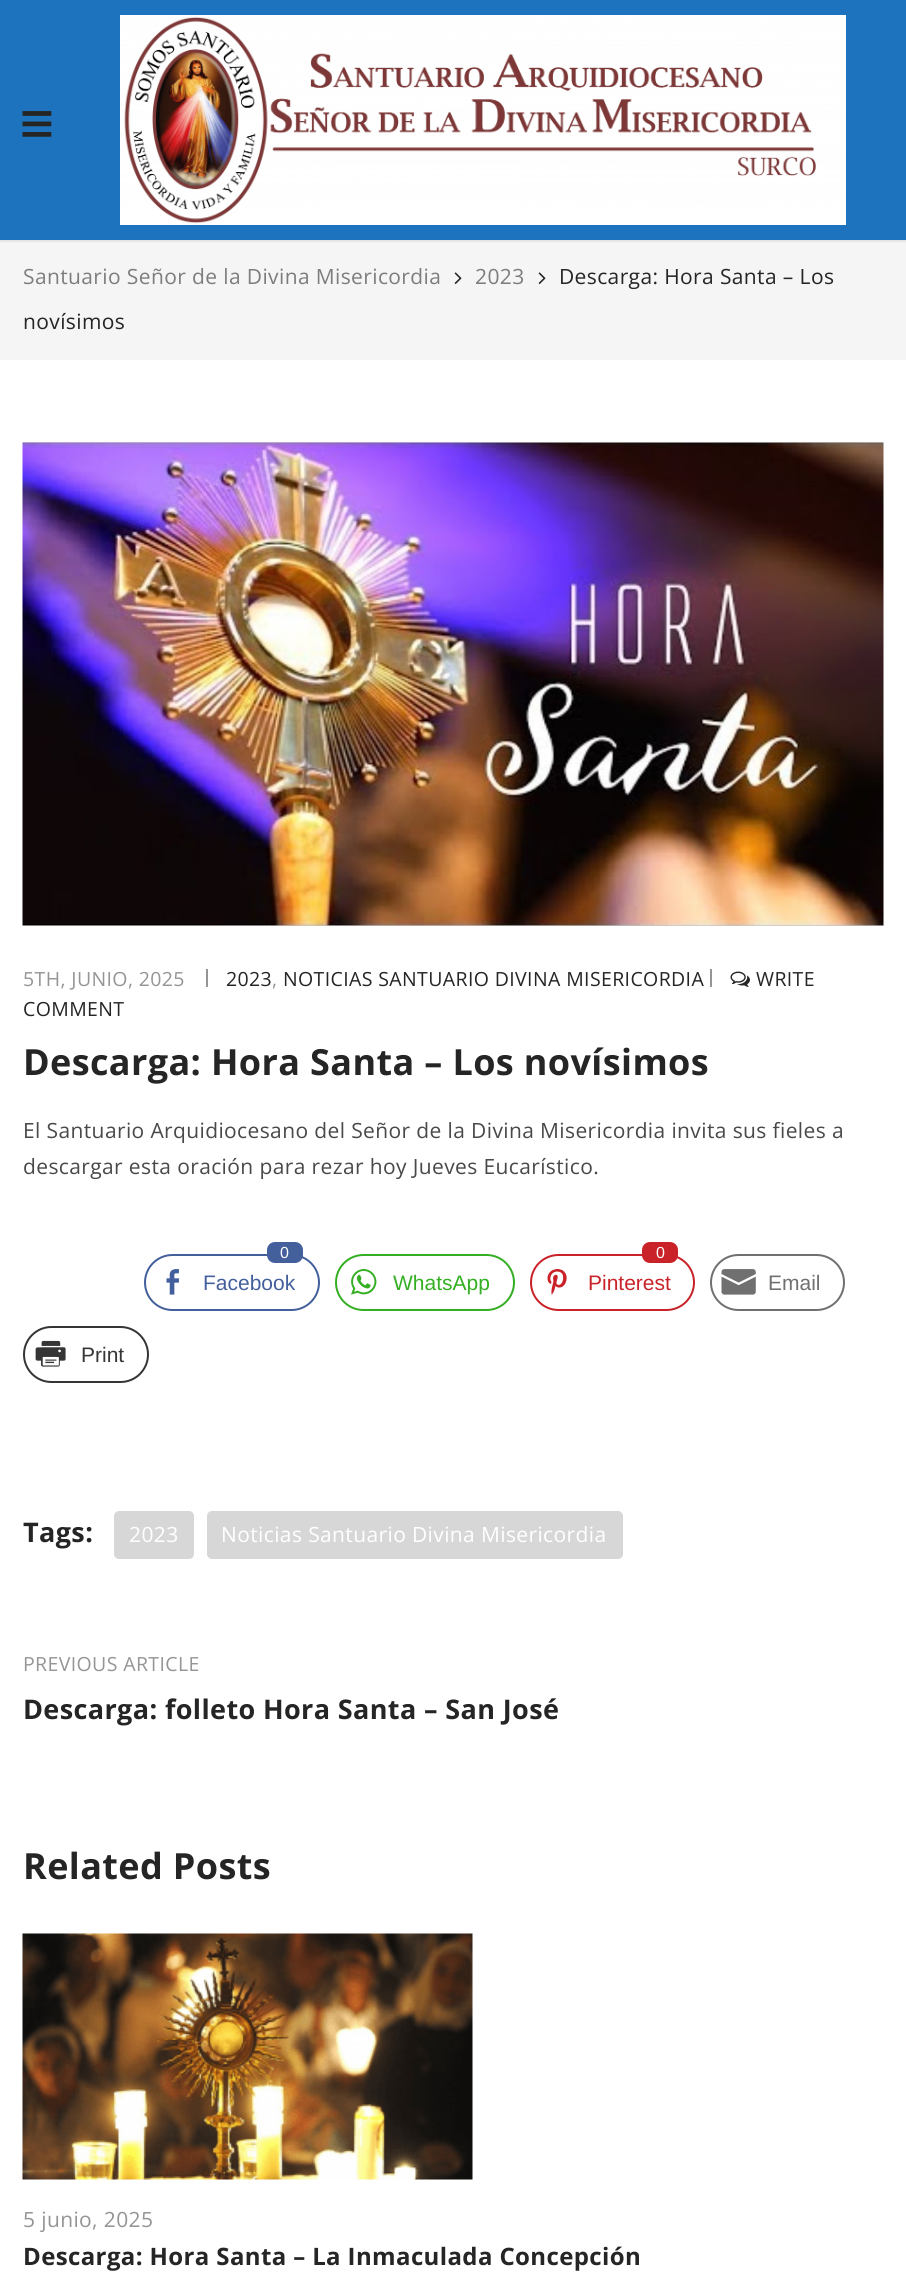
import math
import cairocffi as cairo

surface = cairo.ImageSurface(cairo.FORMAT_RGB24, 906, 2294)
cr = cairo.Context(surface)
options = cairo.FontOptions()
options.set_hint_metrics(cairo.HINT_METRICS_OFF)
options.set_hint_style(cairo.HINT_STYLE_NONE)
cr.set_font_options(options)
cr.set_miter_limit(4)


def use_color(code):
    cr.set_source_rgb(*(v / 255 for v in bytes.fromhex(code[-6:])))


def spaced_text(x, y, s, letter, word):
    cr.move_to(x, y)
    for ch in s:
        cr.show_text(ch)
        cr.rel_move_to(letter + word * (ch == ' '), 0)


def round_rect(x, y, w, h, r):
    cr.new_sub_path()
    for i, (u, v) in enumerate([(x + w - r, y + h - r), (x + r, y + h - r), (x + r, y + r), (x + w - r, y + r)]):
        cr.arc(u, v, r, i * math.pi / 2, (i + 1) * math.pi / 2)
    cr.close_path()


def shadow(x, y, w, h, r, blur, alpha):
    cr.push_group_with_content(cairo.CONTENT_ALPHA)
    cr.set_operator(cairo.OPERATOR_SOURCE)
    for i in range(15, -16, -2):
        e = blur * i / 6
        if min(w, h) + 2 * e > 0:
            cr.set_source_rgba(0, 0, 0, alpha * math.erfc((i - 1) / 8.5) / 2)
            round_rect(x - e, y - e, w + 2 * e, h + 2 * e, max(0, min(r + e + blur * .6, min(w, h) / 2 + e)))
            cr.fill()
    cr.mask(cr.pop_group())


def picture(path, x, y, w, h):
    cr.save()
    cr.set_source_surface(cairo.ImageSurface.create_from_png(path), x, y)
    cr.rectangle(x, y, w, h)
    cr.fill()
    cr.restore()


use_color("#ffffff")
cr.paint()
use_color("#1e73be")
cr.rectangle(0, 0, 906, 240)
cr.fill()
use_color("#f5f5f5")
cr.rectangle(0, 240, 906, 120)
cr.fill()
cr.save()
cr.rectangle(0, 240, 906, 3)
cr.clip()
use_color("#000000")
shadow(0, 0, 906, 240, 0, 2, 0.2)
cr.restore()
picture("img1.png", 22, 111, 30, 26)
picture("img2.png", 120, 15, 726, 210)
cr.select_font_face("Open Sans")
cr.set_font_size(21)
use_color("#7d7d7d")
spaced_text(23, 284, "Santuario Señor de la Divina Misericordia", 0.38, 0)
picture("img3.png", 454, 272, 8, 12)
spaced_text(475, 284, "2023", 0.38, 0)
picture("img3.png", 538, 272, 8, 12)
use_color("#252525")
spaced_text(559, 284, "Descarga: Hora Santa – Los", 0.38, 0)
spaced_text(23, 329, "novísimos", 0.38, 0)
picture("img4.png", 22, 442, 862, 484)
cr.set_font_size(19.5)
use_color("#959595")
spaced_text(23, 986, "5TH, JUNIO, 2025", 0.38, 0)
cr.rectangle(206, 969, 2, 18)
cr.fill()
use_color("#252525")
spaced_text(226, 986, "2023", 0.38, 0)
use_color("#959595")
spaced_text(272, 986, ",", 0.38, 0)
use_color("#252525")
spaced_text(283, 986, "NOTICIAS SANTUARIO DIVINA MISERICORDIA", 0.38, 0)
use_color("#959595")
cr.rectangle(710, 969, 2, 18)
cr.fill()
picture("img5.png", 730, 971, 20, 16)
use_color("#252525")
spaced_text(756, 986, "WRITE", 0.38, 0)
spaced_text(23, 1016, "COMMENT", 0.38, 0)
cr.select_font_face("Open Sans", cairo.FONT_SLANT_NORMAL, cairo.FONT_WEIGHT_BOLD)
cr.set_font_size(36)
spaced_text(23, 1075, "Descarga: Hora Santa – Los novísimos", 0.38, 0)
cr.select_font_face("Open Sans")
cr.set_font_size(21)
use_color("#494949")
spaced_text(23, 1138, "El Santuario Arquidiocesano del Señor de la Divina Misericordia invita sus fieles a", 0.38, 0)
spaced_text(23, 1174, "descargar esta oración para rezar hoy Jueves Eucarístico.", 0.38, 0)
round_rect(145, 1255, 174, 55, 27.5)
use_color("#43609c")
cr.stroke()
round_rect(267, 1242, 36, 21, 8)
cr.fill()
cr.select_font_face("Liberation Sans")
cr.set_font_size(16)
use_color("#ffffff")
cr.move_to(280, 1258)
cr.show_text("0")
picture("img6.png", 166, 1269, 14, 26)
cr.set_font_size(21)
use_color("#43609c")
cr.move_to(203, 1290)
cr.show_text("Facebook")
round_rect(336, 1255, 178, 55, 27.5)
use_color("#34af23")
cr.stroke()
picture("img7.png", 351, 1269, 26, 26)
cr.move_to(393, 1290)
cr.show_text("WhatsApp")
round_rect(531, 1255, 163, 55, 27.5)
use_color("#c92228")
cr.stroke()
round_rect(642, 1242, 36, 21, 8)
cr.fill()
cr.set_font_size(16)
use_color("#ffffff")
cr.move_to(656, 1258)
cr.show_text("0")
picture("img8.png", 547, 1269, 20, 26)
cr.set_font_size(21)
use_color("#c92228")
cr.move_to(588, 1290)
cr.show_text("Pinterest")
round_rect(711, 1255, 133, 55, 27.5)
use_color("#717070")
cr.stroke()
picture("img9.png", 721, 1269, 35, 26)
cr.move_to(768, 1290)
cr.show_text("Email")
round_rect(24, 1327, 124, 55, 27.5)
use_color("#353535")
cr.stroke()
picture("img10.png", 35, 1340, 31, 27)
cr.move_to(81, 1362)
cr.show_text("Print")
cr.select_font_face("Open Sans", cairo.FONT_SLANT_NORMAL, cairo.FONT_WEIGHT_BOLD)
cr.set_font_size(27)
use_color("#252525")
spaced_text(23, 1542, "Tags:", 0.38, 0)
use_color("#d7d7d7")
round_rect(114, 1511, 80, 48, 5)
cr.fill()
cr.select_font_face("Open Sans")
cr.set_font_size(21)
use_color("#ffffff")
spaced_text(129, 1542, "2023", 0.38, 0)
use_color("#d7d7d7")
round_rect(207, 1511, 416, 48, 5)
cr.fill()
use_color("#ffffff")
spaced_text(221, 1542, "Noticias Santuario Divina Misericordia", 0.38, 0)
cr.set_font_size(19.5)
use_color("#959595")
spaced_text(23, 1671, "PREVIOUS ARTICLE", 0.38, 0)
cr.select_font_face("Open Sans", cairo.FONT_SLANT_NORMAL, cairo.FONT_WEIGHT_BOLD)
cr.set_font_size(27)
use_color("#252525")
spaced_text(23, 1719, "Descarga: folleto Hora Santa – San José", 0.38, 0)
cr.set_font_size(36)
spaced_text(23, 1879, "Related Posts", 0.38, 0)
picture("img11.png", 22, 1933, 451, 247)
cr.select_font_face("Open Sans")
cr.set_font_size(21)
use_color("#959595")
spaced_text(23, 2227, "5 junio, 2025", 0.38, 0)
cr.select_font_face("Open Sans", cairo.FONT_SLANT_NORMAL, cairo.FONT_WEIGHT_BOLD)
cr.set_font_size(24)
use_color("#252525")
spaced_text(23, 2265, "Descarga: Hora Santa – La Inmaculada Concepción", 0.38, 0)
surface.write_to_png("result.png")
